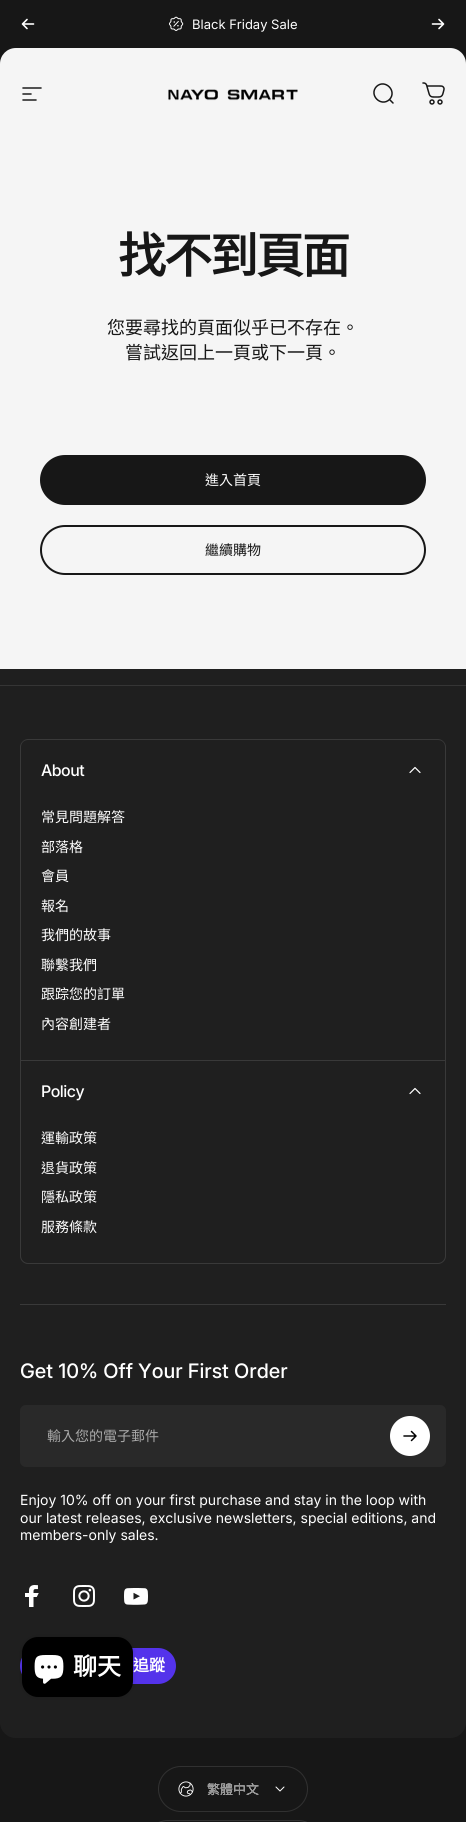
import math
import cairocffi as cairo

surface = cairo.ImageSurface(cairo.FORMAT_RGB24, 466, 1822)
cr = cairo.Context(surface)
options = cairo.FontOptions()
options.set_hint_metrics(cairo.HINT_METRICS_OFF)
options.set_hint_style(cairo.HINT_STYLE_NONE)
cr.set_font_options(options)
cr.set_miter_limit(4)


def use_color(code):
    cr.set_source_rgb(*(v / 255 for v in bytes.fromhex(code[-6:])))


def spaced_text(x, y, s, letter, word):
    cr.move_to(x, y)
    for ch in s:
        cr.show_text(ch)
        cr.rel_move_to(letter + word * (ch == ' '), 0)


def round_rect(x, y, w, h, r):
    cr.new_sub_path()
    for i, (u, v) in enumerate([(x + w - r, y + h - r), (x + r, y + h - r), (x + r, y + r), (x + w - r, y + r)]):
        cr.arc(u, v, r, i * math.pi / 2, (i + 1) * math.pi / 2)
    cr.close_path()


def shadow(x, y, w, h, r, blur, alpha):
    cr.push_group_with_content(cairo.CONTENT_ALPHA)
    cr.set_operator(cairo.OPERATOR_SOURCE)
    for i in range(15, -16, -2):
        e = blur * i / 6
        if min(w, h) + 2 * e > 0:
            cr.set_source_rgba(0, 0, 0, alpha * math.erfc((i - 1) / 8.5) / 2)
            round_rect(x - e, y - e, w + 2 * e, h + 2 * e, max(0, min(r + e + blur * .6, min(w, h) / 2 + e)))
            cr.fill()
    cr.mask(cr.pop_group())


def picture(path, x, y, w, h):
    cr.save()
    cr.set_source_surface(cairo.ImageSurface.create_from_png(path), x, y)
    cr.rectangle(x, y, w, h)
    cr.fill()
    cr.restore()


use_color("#f5f5f5")
cr.paint()
use_color("#171717")
cr.rectangle(0, 0, 466, 16)
cr.fill()
cr.new_path()
cr.move_to(16, 0)
cr.line_to(450, 0)
cr.curve_to(459, 0, 466, 7, 466, 16)
cr.line_to(466, 64)
cr.line_to(0, 64)
cr.line_to(0, 16)
cr.curve_to(0, 7, 7, 0, 16, 0)
cr.close_path()
cr.fill()
cr.new_path()
cr.move_to(27, 19.5)
cr.line_to(22.5, 24)
cr.move_to(22.5, 24)
cr.line_to(27, 28.5)
cr.move_to(22.5, 24)
cr.line_to(33.5, 24)
use_color("#ffffff")
cr.set_line_width(1.6)
cr.set_line_cap(cairo.LINE_CAP_ROUND)
cr.set_line_join(cairo.LINE_JOIN_ROUND)
cr.stroke()
picture("img1.png", 169, 16, 15, 15)
cr.select_font_face("Inter")
cr.set_font_size(13)
cr.move_to(192, 29)
cr.show_text("Black Friday Sale")
cr.new_path()
cr.move_to(432.5, 24)
cr.line_to(443.5, 24)
cr.move_to(443.5, 24)
cr.line_to(439, 19.5)
cr.move_to(443.5, 24)
cr.line_to(439, 28.5)
cr.stroke()
use_color("#f5f5f5")
cr.new_path()
cr.move_to(16, 48)
cr.line_to(450, 48)
cr.curve_to(459, 48, 466, 55, 466, 64)
cr.line_to(466, 140)
cr.line_to(0, 140)
cr.line_to(0, 64)
cr.curve_to(0, 55, 7, 48, 16, 48)
cr.close_path()
cr.fill()
cr.new_path()
cr.move_to(23, 88)
cr.line_to(41, 88)
cr.move_to(23, 94)
cr.line_to(31, 94)
cr.move_to(23, 100)
cr.line_to(36, 100)
use_color("#171717")
cr.set_line_width(1.5)
cr.set_line_join(cairo.LINE_JOIN_MITER)
cr.stroke()
picture("img2.png", 168, 89, 130, 12)
cr.new_path()
cr.move_to(393, 103)
cr.line_to(389.5, 99.5)
cr.move_to(389.5, 99.5)
cr.curve_to(397.5, 91, 385, 78.5, 376.5, 86.5)
cr.curve_to(368.5, 95, 381, 107.5, 389.5, 99.5)
cr.close_path()
cr.stroke()
picture("img3.png", 422, 82, 23, 23)
cr.select_font_face("Noto Sans CJK TC", cairo.FONT_SLANT_NORMAL, cairo.FONT_WEIGHT_BOLD)
cr.set_font_size(48)
spaced_text(118, 273, "找不到頁面", -2, 0)
cr.select_font_face("Noto Sans CJK TC")
cr.set_font_size(18)
cr.move_to(107, 334)
cr.show_text("您要尋找的頁面似乎已不存在。")
cr.move_to(125, 359)
cr.show_text("嘗試返回上一頁或下一頁。")
round_rect(41, 456, 384, 48, 24)
cr.fill_preserve()
cr.set_line_width(2)
cr.set_line_cap(cairo.LINE_CAP_BUTT)
cr.stroke()
cr.set_font_size(14)
use_color("#ffffff")
cr.move_to(205, 485)
cr.show_text("進入首頁")
round_rect(41, 526, 384, 48, 24)
use_color("#171717")
cr.stroke()
cr.move_to(205, 555)
cr.show_text("繼續購物")
cr.rectangle(0, 1722, 466, 100)
cr.fill()
use_color("#1f1f1f")
cr.new_path()
cr.move_to(0, 669)
cr.line_to(466, 669)
cr.line_to(466, 1722)
cr.curve_to(466, 1731, 459, 1738, 450, 1738)
cr.line_to(16, 1738)
cr.curve_to(7, 1738, 0, 1731, 0, 1722)
cr.close_path()
cr.fill()
use_color("#353535")
cr.rectangle(0, 685, 466, 1)
cr.fill()
use_color("#393939")
cr.set_fill_rule(cairo.FILL_RULE_EVEN_ODD)
cr.new_path()
cr.move_to(28, 739)
cr.line_to(438, 739)
cr.curve_to(442, 739, 446, 743, 446, 747)
cr.line_to(446, 1060)
cr.line_to(20, 1060)
cr.line_to(20, 747)
cr.curve_to(20, 743, 24, 739, 28, 739)
cr.close_path()
cr.move_to(28, 740)
cr.line_to(438, 740)
cr.curve_to(442, 740, 445, 743, 445, 747)
cr.line_to(445, 1060)
cr.line_to(21, 1060)
cr.line_to(21, 747)
cr.curve_to(21, 743, 24, 740, 28, 740)
cr.close_path()
cr.fill()
cr.select_font_face("Inter Medium")
cr.set_font_size(16)
use_color("#ffffff")
spaced_text(41, 776, "About", -0.5, 0)
cr.new_path()
cr.move_to(410, 772.5)
cr.line_to(415, 767.5)
cr.line_to(420, 772.5)
cr.set_line_width(1.2)
cr.set_line_cap(cairo.LINE_CAP_ROUND)
cr.set_line_join(cairo.LINE_JOIN_ROUND)
cr.stroke()
cr.select_font_face("Noto Sans CJK TC")
cr.set_font_size(14)
cr.move_to(41, 822)
cr.show_text("常見問題解答")
cr.move_to(41, 852)
cr.show_text("部落格")
cr.move_to(41, 881)
cr.show_text("會員")
cr.move_to(41, 911)
cr.show_text("報名")
cr.move_to(41, 940)
cr.show_text("我們的故事")
cr.move_to(41, 970)
cr.show_text("聯繫我們")
cr.move_to(41, 999)
cr.show_text("跟踪您的訂單")
cr.move_to(41, 1029)
cr.show_text("內容創建者")
cr.new_path()
cr.move_to(20.5, 1060.5)
cr.line_to(445.5, 1060.5)
cr.line_to(445.5, 1256)
cr.curve_to(445.5, 1260, 442, 1263.5, 438, 1263.5)
cr.line_to(28, 1263.5)
cr.curve_to(24, 1263.5, 20.5, 1260, 20.5, 1256)
cr.close_path()
use_color("#393939")
cr.set_line_width(1)
cr.set_line_cap(cairo.LINE_CAP_BUTT)
cr.set_line_join(cairo.LINE_JOIN_MITER)
cr.stroke()
cr.select_font_face("Inter Medium")
cr.set_font_size(16)
use_color("#ffffff")
spaced_text(41, 1097, "Policy", -0.5, 0)
cr.new_path()
cr.move_to(410, 1093.5)
cr.line_to(415, 1088.5)
cr.line_to(420, 1093.5)
cr.set_line_width(1.2)
cr.set_line_cap(cairo.LINE_CAP_ROUND)
cr.set_line_join(cairo.LINE_JOIN_ROUND)
cr.stroke()
cr.select_font_face("Noto Sans CJK TC")
cr.set_font_size(14)
cr.move_to(41, 1143)
cr.show_text("運輸政策")
cr.move_to(41, 1173)
cr.show_text("退貨政策")
cr.move_to(41, 1202)
cr.show_text("隱私政策")
cr.move_to(41, 1232)
cr.show_text("服務條款")
use_color("#393939")
cr.rectangle(20, 1304, 426, 1)
cr.fill()
cr.select_font_face("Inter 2 Medium")
cr.set_font_size(20)
use_color("#ffffff")
cr.move_to(20, 1378)
cr.show_text("Get 10% Off Your First Order")
use_color("#292929")
round_rect(20, 1405, 426, 62, 6)
cr.fill()
cr.select_font_face("Noto Sans CJK TC")
cr.set_font_size(14)
use_color("#a9a9a9")
cr.move_to(47, 1441)
cr.show_text("輸入您的電子郵件")
use_color("#ffffff")
cr.new_path()
cr.arc(410, 1436, 19, 0, 2 * math.pi)
cr.fill_preserve()
cr.set_line_width(2)
cr.set_line_cap(cairo.LINE_CAP_BUTT)
cr.set_line_join(cairo.LINE_JOIN_MITER)
cr.stroke()
cr.new_path()
cr.move_to(404, 1436)
cr.line_to(416, 1436)
cr.move_to(416, 1436)
cr.line_to(411.5, 1431.5)
cr.move_to(416, 1436)
cr.line_to(411.5, 1440.5)
use_color("#000000")
cr.set_line_width(1.5)
cr.set_line_cap(cairo.LINE_CAP_ROUND)
cr.set_line_join(cairo.LINE_JOIN_ROUND)
cr.stroke()
cr.select_font_face("Inter")
use_color("#ffffff")
cr.move_to(20, 1505)
cr.show_text("Enjoy 10% off on your first purchase and stay in the loop with")
cr.move_to(20, 1523)
cr.show_text("our latest releases, exclusive newsletters, special editions, and")
cr.move_to(20, 1540)
cr.show_text("members-only sales.")
picture("img4.png", 25, 1585, 14, 22)
picture("img5.png", 73, 1585, 22, 22)
picture("img6.png", 124, 1588, 24, 17)
use_color("#5433eb")
round_rect(20, 1648, 156, 36, 18)
cr.fill()
cr.select_font_face("Noto Sans CJK TC", cairo.FONT_SLANT_NORMAL, cairo.FONT_WEIGHT_BOLD)
cr.set_font_size(16)
use_color("#ffffff")
cr.move_to(133, 1671)
cr.show_text("追蹤")
round_rect(158.5, 1766.5, 149, 45, 22.5)
use_color("#313131")
cr.set_line_width(1)
cr.set_line_cap(cairo.LINE_CAP_BUTT)
cr.set_line_join(cairo.LINE_JOIN_MITER)
cr.stroke()
picture("img7.png", 178, 1781, 16, 16)
cr.select_font_face("Noto Sans CJK TC")
cr.set_font_size(13)
use_color("#ffffff")
cr.move_to(207, 1794)
cr.show_text("繁體中文")
use_color("#8e8e8e")
cr.move_to(207, 1794)
cr.show_text("繁體中文")
cr.new_path()
cr.move_to(276, 1787)
cr.line_to(280, 1791)
cr.line_to(284, 1787)
use_color("#ffffff")
cr.set_line_cap(cairo.LINE_CAP_ROUND)
cr.set_line_join(cairo.LINE_JOIN_ROUND)
cr.stroke()
round_rect(145.5, 1820.5, 175, 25, 22.5)
use_color("#313131")
cr.set_line_cap(cairo.LINE_CAP_BUTT)
cr.set_line_join(cairo.LINE_JOIN_MITER)
cr.stroke()
use_color("#000000")
shadow(22, 1637, 111, 60, 16, 2.5, 0.15)
use_color("#000000")
round_rect(22, 1637, 111, 60, 16)
cr.fill()
picture("img8.png", 34, 1655, 30, 29)
cr.select_font_face("Noto Sans CJK TC", cairo.FONT_SLANT_NORMAL, cairo.FONT_WEIGHT_BOLD)
cr.set_font_size(24)
use_color("#ffffff")
cr.move_to(73, 1675)
cr.show_text("聊天")
surface.write_to_png("result.png")
